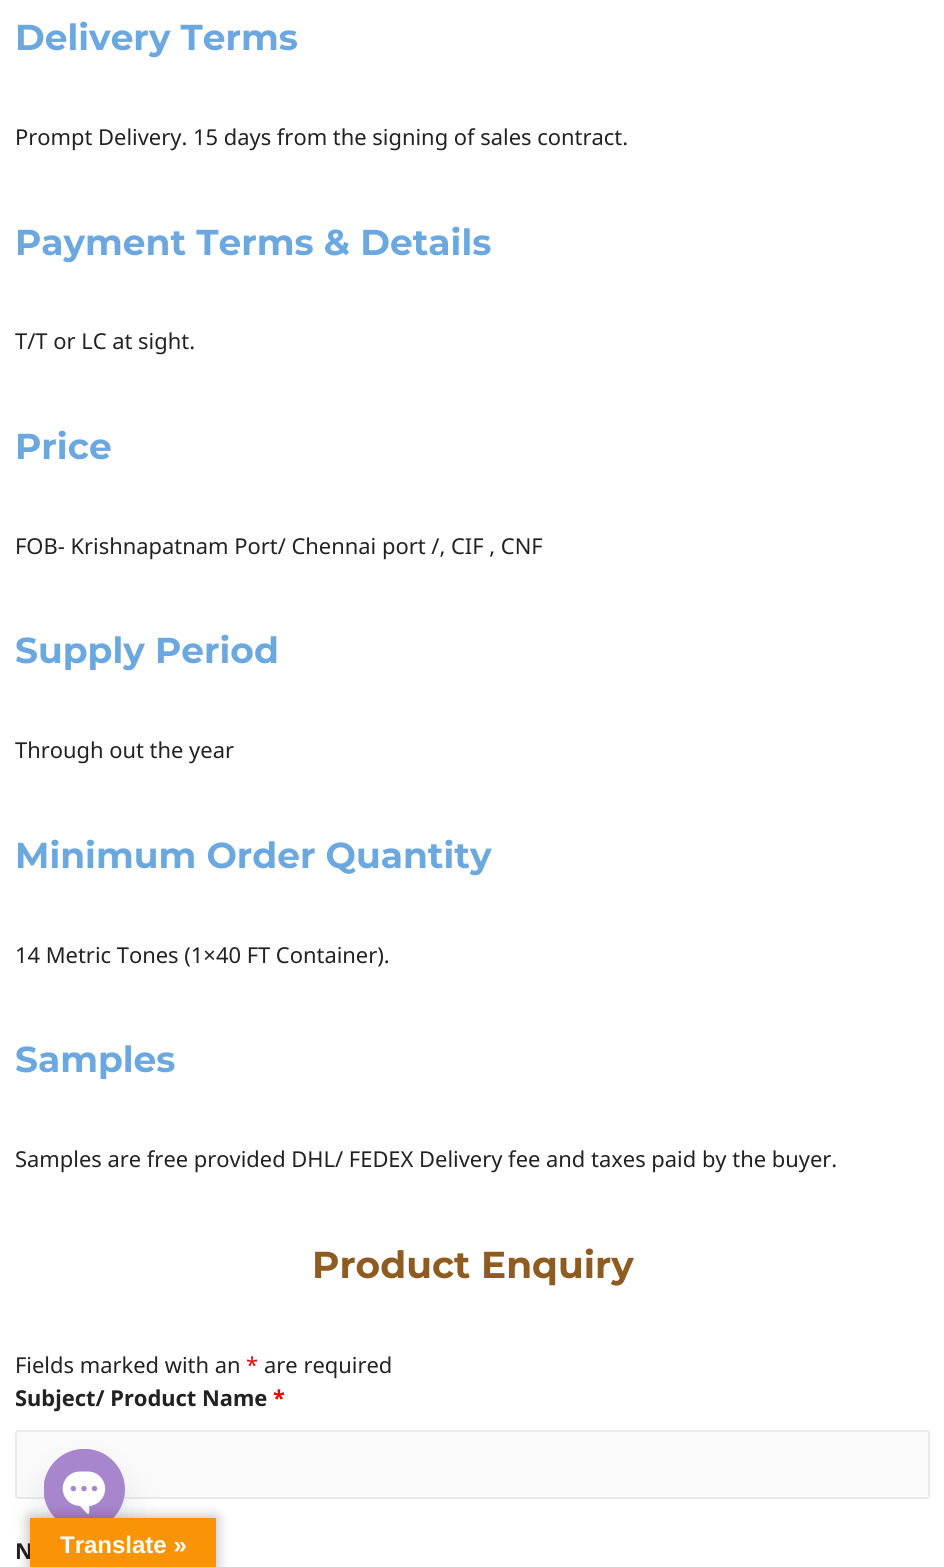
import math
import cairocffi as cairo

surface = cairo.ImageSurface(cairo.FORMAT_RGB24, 944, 1567)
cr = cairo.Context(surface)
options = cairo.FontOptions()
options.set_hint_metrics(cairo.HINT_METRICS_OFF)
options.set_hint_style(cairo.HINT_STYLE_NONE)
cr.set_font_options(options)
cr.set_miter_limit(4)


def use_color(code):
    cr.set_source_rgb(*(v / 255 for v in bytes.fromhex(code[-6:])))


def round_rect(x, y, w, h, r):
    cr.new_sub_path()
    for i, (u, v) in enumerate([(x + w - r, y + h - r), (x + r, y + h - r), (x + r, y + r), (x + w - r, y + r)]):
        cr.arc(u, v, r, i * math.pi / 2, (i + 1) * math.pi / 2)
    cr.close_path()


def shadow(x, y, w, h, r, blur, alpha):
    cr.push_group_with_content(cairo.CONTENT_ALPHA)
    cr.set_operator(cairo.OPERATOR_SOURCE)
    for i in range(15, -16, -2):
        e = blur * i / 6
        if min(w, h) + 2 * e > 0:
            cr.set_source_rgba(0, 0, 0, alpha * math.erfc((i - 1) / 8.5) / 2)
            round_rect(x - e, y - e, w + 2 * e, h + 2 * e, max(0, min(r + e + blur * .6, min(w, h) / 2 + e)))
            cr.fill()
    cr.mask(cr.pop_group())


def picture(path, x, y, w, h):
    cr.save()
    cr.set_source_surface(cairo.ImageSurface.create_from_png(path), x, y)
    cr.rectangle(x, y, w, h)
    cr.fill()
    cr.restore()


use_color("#ffffff")
cr.paint()
cr.select_font_face("Montserrat Thin")
cr.set_font_size(36)
use_color("#6ba8e0")
cr.move_to(15, 50)
cr.show_text("Delivery Terms")
cr.select_font_face("Noto Sans")
cr.set_font_size(21.9)
use_color("#222222")
cr.move_to(15, 145)
cr.show_text("Prompt Delivery. 15 days from the signing of sales contract.")
cr.select_font_face("Montserrat Thin")
cr.set_font_size(36)
use_color("#6ba8e0")
cr.move_to(15, 255)
cr.show_text("Payment Terms & Details")
cr.select_font_face("Noto Sans")
cr.set_font_size(21.9)
use_color("#222222")
cr.move_to(15, 349)
cr.show_text("T/T or LC at sight.")
cr.select_font_face("Montserrat Thin")
cr.set_font_size(36)
use_color("#6ba8e0")
cr.move_to(15, 459)
cr.show_text("Price")
cr.select_font_face("Noto Sans")
cr.set_font_size(21.9)
use_color("#222222")
cr.move_to(15, 554)
cr.show_text("FOB- Krishnapatnam Port/ Chennai port /, CIF , CNF")
cr.select_font_face("Montserrat Thin")
cr.set_font_size(36)
use_color("#6ba8e0")
cr.move_to(15, 663)
cr.show_text("Supply Period")
cr.select_font_face("Noto Sans")
cr.set_font_size(21.9)
use_color("#222222")
cr.move_to(15, 758)
cr.show_text("Through out the year")
cr.select_font_face("Montserrat Thin")
cr.set_font_size(36)
use_color("#6ba8e0")
cr.move_to(15, 868)
cr.show_text("Minimum Order Quantity")
cr.select_font_face("Noto Sans")
cr.set_font_size(21.9)
use_color("#222222")
cr.move_to(15, 963)
cr.show_text("14 Metric Tones (1×40 FT Container).")
cr.select_font_face("Montserrat Thin")
cr.set_font_size(36)
use_color("#6ba8e0")
cr.move_to(15, 1072)
cr.show_text("Samples")
cr.select_font_face("Noto Sans")
cr.set_font_size(21.9)
use_color("#222222")
cr.move_to(15, 1167)
cr.show_text("Samples are free provided DHL/ FEDEX Delivery fee and taxes paid by the buyer.")
cr.select_font_face("Montserrat Thin")
cr.set_font_size(37.5)
use_color("#8e5b20")
cr.move_to(312, 1278)
cr.show_text("Product Enquiry")
cr.select_font_face("Noto Sans")
cr.set_font_size(21.9)
use_color("#222222")
cr.move_to(15, 1373)
cr.show_text("Fields marked with an")
use_color("#e80000")
cr.move_to(246, 1373)
cr.show_text("*")
use_color("#222222")
cr.move_to(264, 1373)
cr.show_text("are required")
cr.select_font_face("Noto Sans", cairo.FONT_SLANT_NORMAL, cairo.FONT_WEIGHT_BOLD)
cr.move_to(15, 1406)
cr.show_text("Subject/ Product Name")
use_color("#e80000")
cr.move_to(273, 1406)
cr.show_text("*")
use_color("#fafafa")
round_rect(16, 1431, 913, 67, 2)
cr.fill_preserve()
use_color("#eaeaea")
cr.stroke()
use_color("#222222")
cr.move_to(15, 1559)
cr.show_text("N")
use_color("#49687e")
shadow(44, 1473, 81, 81, 40.5, 18, 0.16)
use_color("#a886cd")
cr.arc(84.5, 1489.5, 40.5, 0, 2 * math.pi)
cr.fill()
picture("img1.png", 44, 1449, 63, 69)
use_color("#000000")
shadow(30, 1518, 186, 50, 0, 7, 0.3)
use_color("#f89406")
cr.rectangle(30, 1518, 186, 49)
cr.fill()
cr.select_font_face("Liberation Sans", cairo.FONT_SLANT_NORMAL, cairo.FONT_WEIGHT_BOLD)
cr.set_font_size(24)
use_color("#ffffff")
cr.move_to(60, 1553)
cr.show_text("Translate »")
surface.write_to_png("result.png")
